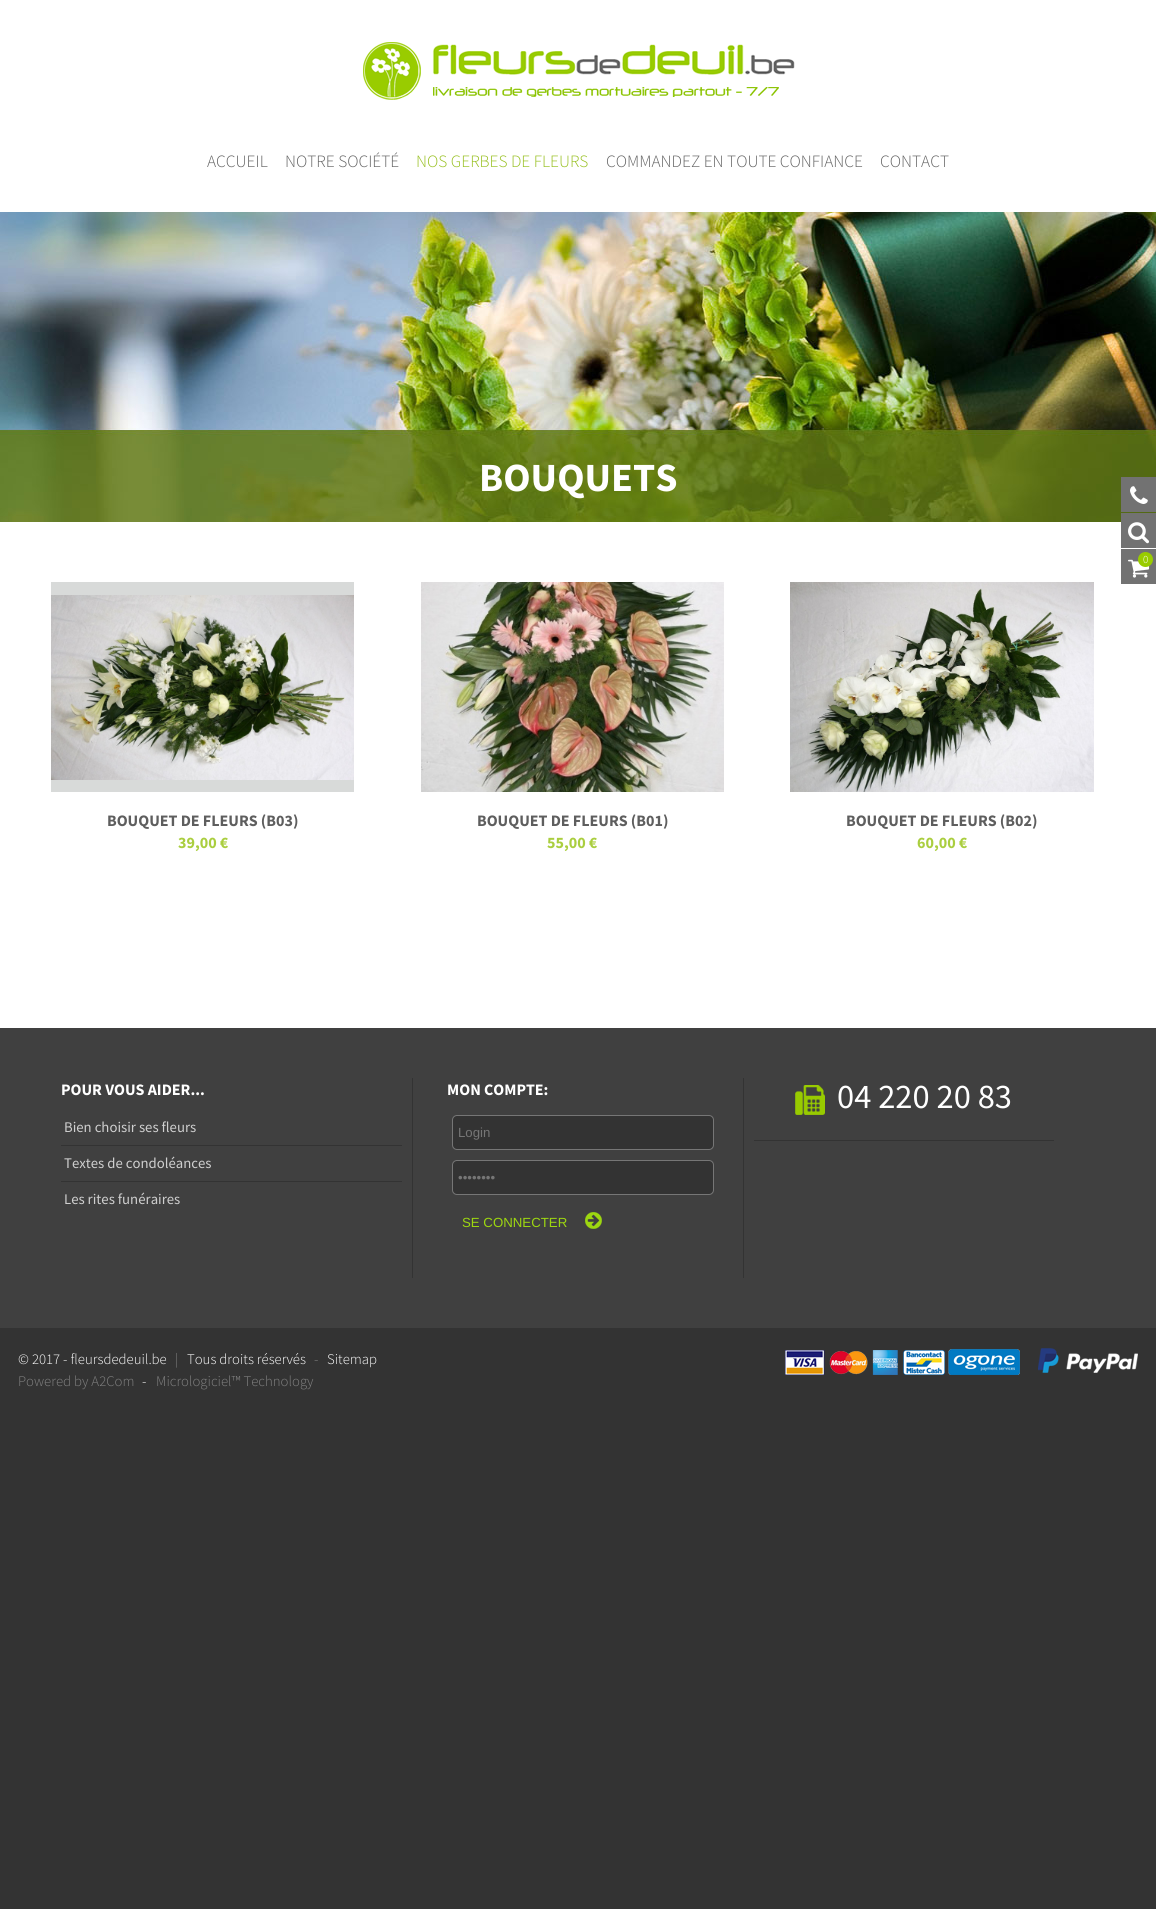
import math
import cairocffi as cairo

surface = cairo.ImageSurface(cairo.FORMAT_RGB24, 1156, 1909)
cr = cairo.Context(surface)
options = cairo.FontOptions()
options.set_hint_metrics(cairo.HINT_METRICS_OFF)
options.set_hint_style(cairo.HINT_STYLE_NONE)
cr.set_font_options(options)
cr.set_miter_limit(4)


def use_color(code):
    cr.set_source_rgb(*(v / 255 for v in bytes.fromhex(code[-6:])))


def round_rect(x, y, w, h, r):
    cr.new_sub_path()
    for i, (u, v) in enumerate([(x + w - r, y + h - r), (x + r, y + h - r), (x + r, y + r), (x + w - r, y + r)]):
        cr.arc(u, v, r, i * math.pi / 2, (i + 1) * math.pi / 2)
    cr.close_path()


def picture(path, x, y, w, h):
    cr.save()
    cr.set_source_surface(cairo.ImageSurface.create_from_png(path), x, y)
    cr.rectangle(x, y, w, h)
    cr.fill()
    cr.restore()


use_color("#333333")
cr.paint()
use_color("#ffffff")
cr.rectangle(0, 0, 1156, 212)
cr.fill()
picture("img1.png", 363, 42, 432, 58)
cr.select_font_face("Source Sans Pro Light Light")
cr.set_font_size(17.3)
use_color("#656565")
cr.move_to(207, 167)
cr.show_text("ACCUEIL")
cr.move_to(285, 167)
cr.show_text("NOTRE SOCIÉTÉ")
use_color("#98c021")
cr.move_to(416, 167)
cr.show_text("NOS GERBES DE FLEURS")
use_color("#656565")
cr.move_to(606, 167)
cr.show_text("COMMANDEZ EN TOUTE CONFIANCE")
cr.move_to(880, 167)
cr.show_text("CONTACT")
use_color("#ffffff")
cr.rectangle(0, 522, 1156, 506)
cr.fill()
picture("img2.png", 0, 212, 1156, 310)
cr.select_font_face("Source Sans Pro", cairo.FONT_SLANT_NORMAL, cairo.FONT_WEIGHT_BOLD)
cr.set_font_size(40)
cr.move_to(479, 491)
cr.show_text("BOUQUETS")
use_color("#d8dad9")
cr.rectangle(51, 582, 303, 210)
cr.fill()
picture("img3.png", 51, 595, 303, 185)
cr.set_font_size(16)
use_color("#5e5e5e")
cr.move_to(107, 826)
cr.show_text("BOUQUET DE FLEURS (B03)")
use_color("#aace3f")
cr.move_to(178, 848)
cr.show_text("39,00 €")
picture("img4.png", 421, 582, 303, 210)
use_color("#5e5e5e")
cr.move_to(477, 826)
cr.show_text("BOUQUET DE FLEURS (B01)")
use_color("#aace3f")
cr.move_to(547, 848)
cr.show_text("55,00 €")
picture("img5.png", 790, 582, 304, 210)
use_color("#5e5e5e")
cr.move_to(846, 826)
cr.show_text("BOUQUET DE FLEURS (B02)")
use_color("#aace3f")
cr.move_to(917, 848)
cr.show_text("60,00 €")
use_color("#404040")
cr.rectangle(0, 1028, 1156, 300)
cr.fill()
use_color("#ffffff")
cr.move_to(61, 1095)
cr.show_text("POUR VOUS AIDER...")
cr.select_font_face("Source Sans Pro")
cr.set_font_size(14.75)
use_color("#cfcfcf")
cr.move_to(64, 1132)
cr.show_text("Bien choisir ses fleurs")
use_color("#333333")
cr.rectangle(61, 1145, 341, 1)
cr.fill()
use_color("#cfcfcf")
cr.move_to(64, 1168)
cr.show_text("Textes de condoléances")
use_color("#333333")
cr.rectangle(61, 1181, 341, 1)
cr.fill()
use_color("#cfcfcf")
cr.move_to(64, 1204)
cr.show_text("Les rites funéraires")
use_color("#333333")
cr.rectangle(743, 1078, 1, 200)
cr.fill()
cr.rectangle(412, 1078, 1, 200)
cr.fill()
cr.select_font_face("Source Sans Pro", cairo.FONT_SLANT_NORMAL, cairo.FONT_WEIGHT_BOLD)
cr.set_font_size(16)
use_color("#ffffff")
cr.move_to(447, 1095)
cr.show_text("MON COMPTE:")
use_color("#333333")
round_rect(452.5, 1115.5, 261, 34, 4.5)
cr.fill_preserve()
use_color("#767676")
cr.set_line_width(1)
cr.stroke()
cr.select_font_face("Liberation Sans")
cr.set_font_size(13.25)
cr.move_to(458, 1137)
cr.show_text("Login")
use_color("#333333")
round_rect(452.5, 1160.5, 261, 34, 4.5)
cr.fill_preserve()
use_color("#767676")
cr.stroke()
cr.move_to(458, 1182)
cr.show_text("••••••••")
picture("img6.png", 585, 1212, 17, 17)
use_color("#9dd710")
cr.move_to(462, 1227)
cr.show_text("SE CONNECTER")
picture("img7.png", 795, 1085, 30, 30)
cr.select_font_face("Source Sans Pro")
cr.set_font_size(34.5)
use_color("#ffffff")
cr.move_to(837, 1108)
cr.show_text("04 220 20 83")
use_color("#333333")
cr.rectangle(754, 1140, 300, 1)
cr.fill()
cr.select_font_face("Source Sans Pro Light Light")
cr.set_font_size(14.75)
use_color("#ffffff")
cr.move_to(18, 1364)
cr.show_text("© 2017 - fleursdedeuil.be")
use_color("#828282")
cr.move_to(175, 1364)
cr.show_text("|")
use_color("#ffffff")
cr.move_to(187, 1364)
cr.show_text("Tous droits réservés")
use_color("#828282")
cr.move_to(314, 1364)
cr.show_text("-")
use_color("#ffffff")
cr.move_to(327, 1364)
cr.show_text("Sitemap")
use_color("#828282")
cr.move_to(18, 1386)
cr.show_text("Powered by A2Com")
use_color("#ffffff")
cr.move_to(142, 1386)
cr.show_text("-")
use_color("#828282")
cr.move_to(156, 1386)
cr.show_text("Micrologiciel™ Technology")
picture("img8.png", 785, 1350, 160, 25)
picture("img9.png", 948, 1348, 190, 27)
use_color("#727272")
cr.rectangle(1121, 477, 35, 35)
cr.fill()
picture("img10.png", 1130, 486, 18, 18)
cr.rectangle(1121, 513, 35, 35)
cr.fill()
picture("img11.png", 1128, 522, 21, 22)
cr.rectangle(1121, 549, 35, 35)
cr.fill()
picture("img12.png", 1128, 559, 22, 19)
use_color("#99cc00")
cr.arc(1145.5, 559.5, 7.5, 0, 2 * math.pi)
cr.fill()
cr.set_font_size(11)
use_color("#ffffff")
cr.move_to(1143, 563)
cr.show_text("0")
surface.write_to_png("result.png")
